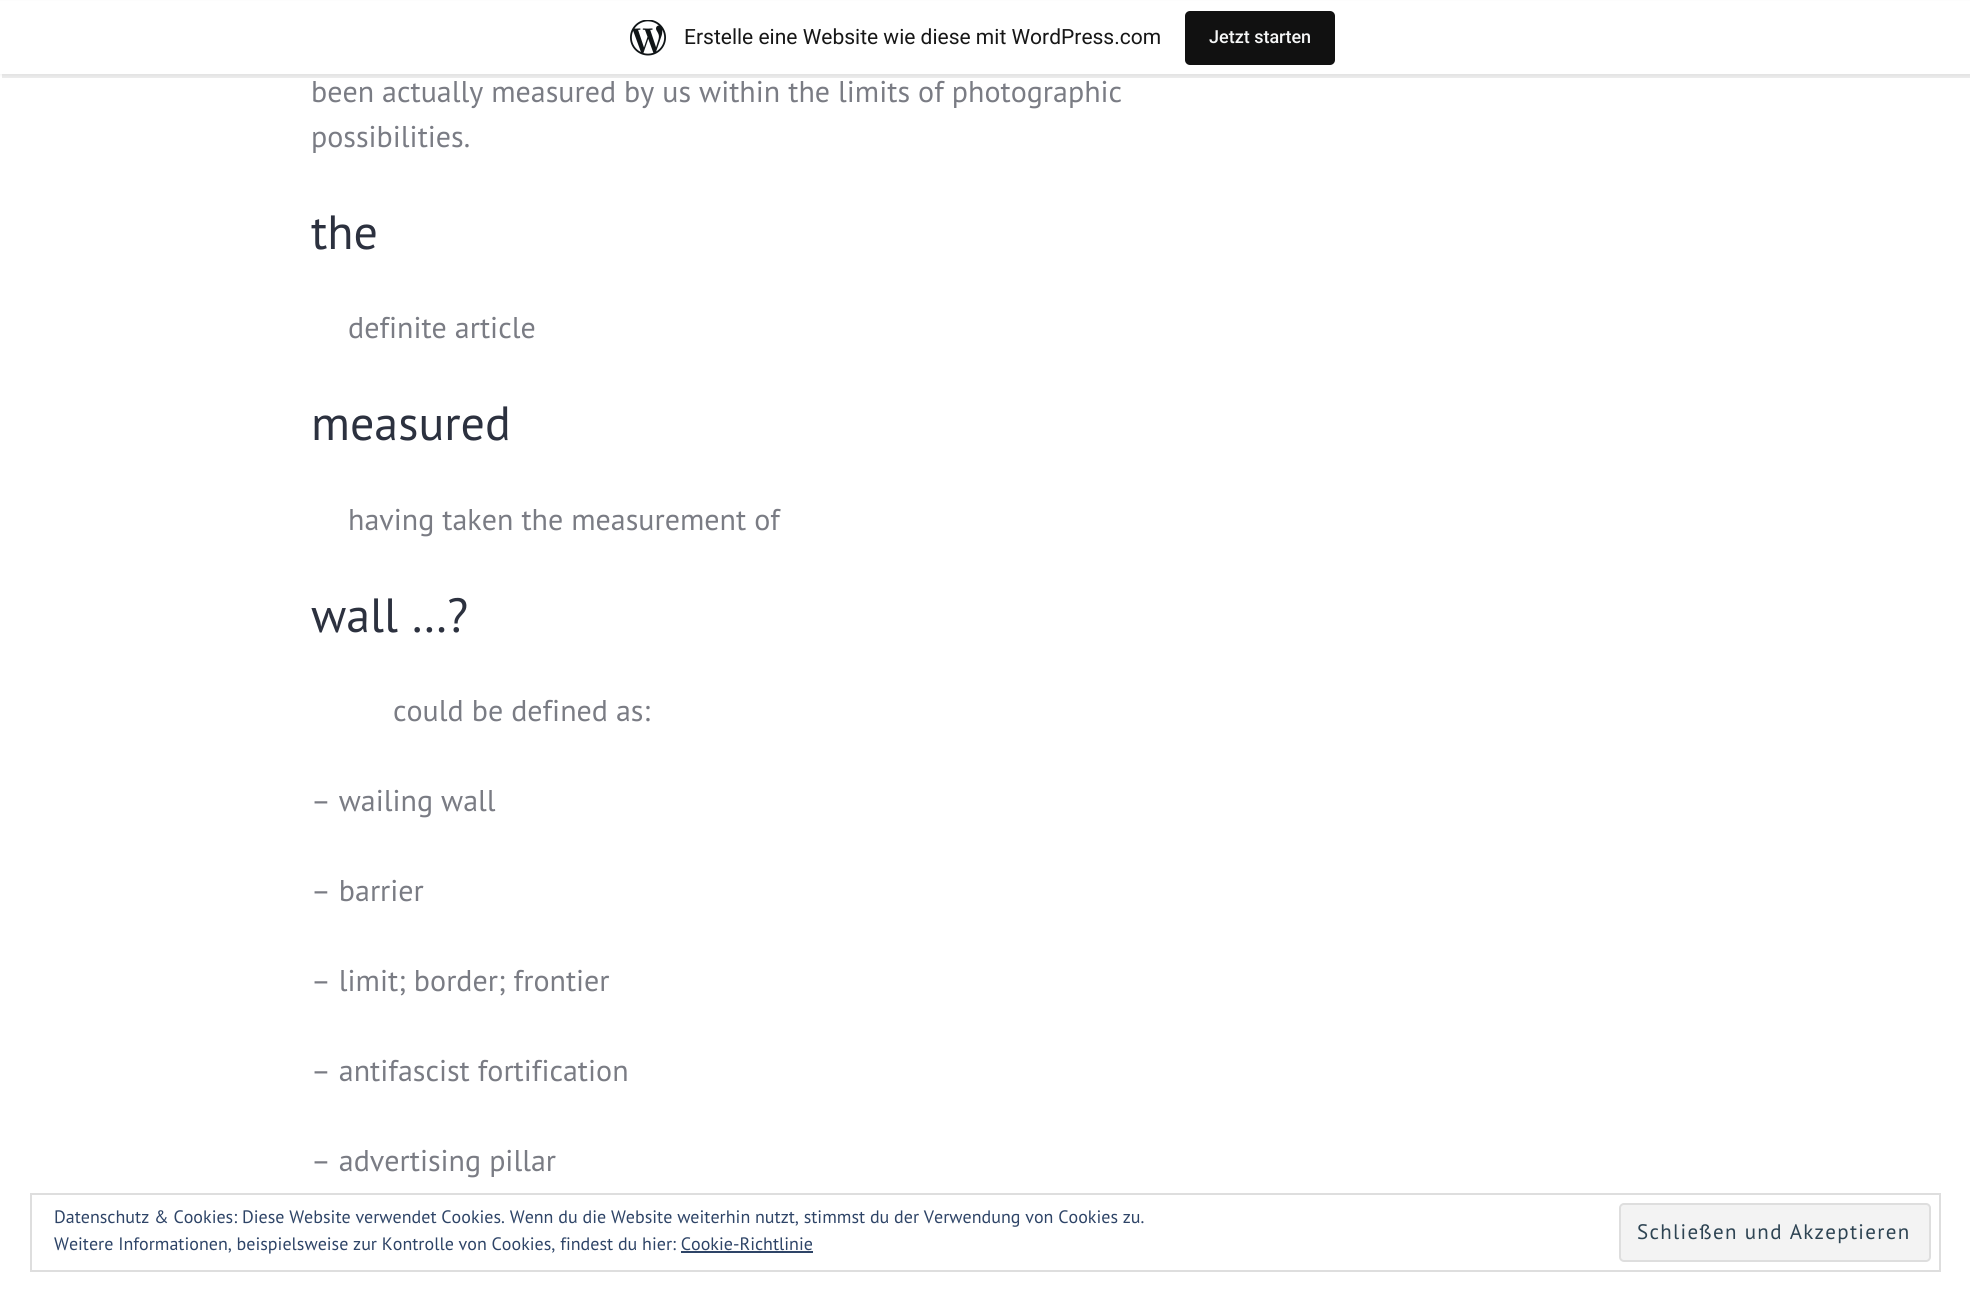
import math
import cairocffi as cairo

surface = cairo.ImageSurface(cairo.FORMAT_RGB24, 1970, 1302)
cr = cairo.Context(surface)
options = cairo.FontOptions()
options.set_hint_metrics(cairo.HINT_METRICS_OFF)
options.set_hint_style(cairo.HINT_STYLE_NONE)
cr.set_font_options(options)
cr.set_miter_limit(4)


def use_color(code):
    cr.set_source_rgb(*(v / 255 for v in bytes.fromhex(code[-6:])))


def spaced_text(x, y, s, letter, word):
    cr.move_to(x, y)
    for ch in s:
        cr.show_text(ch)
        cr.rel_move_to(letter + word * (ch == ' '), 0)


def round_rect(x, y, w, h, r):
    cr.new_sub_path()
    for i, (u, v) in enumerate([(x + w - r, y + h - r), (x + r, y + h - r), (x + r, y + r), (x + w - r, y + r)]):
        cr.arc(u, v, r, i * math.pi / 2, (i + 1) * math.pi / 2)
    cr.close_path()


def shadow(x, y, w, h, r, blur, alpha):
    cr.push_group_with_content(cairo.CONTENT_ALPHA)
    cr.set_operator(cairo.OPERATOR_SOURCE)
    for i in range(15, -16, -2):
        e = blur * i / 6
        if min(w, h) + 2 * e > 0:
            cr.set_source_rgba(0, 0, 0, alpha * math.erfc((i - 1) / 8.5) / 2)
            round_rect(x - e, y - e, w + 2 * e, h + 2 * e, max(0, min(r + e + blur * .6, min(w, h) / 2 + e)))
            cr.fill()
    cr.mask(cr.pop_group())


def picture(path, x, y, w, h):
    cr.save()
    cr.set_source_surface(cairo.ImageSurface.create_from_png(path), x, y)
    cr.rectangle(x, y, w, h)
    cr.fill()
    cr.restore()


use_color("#ffffff")
cr.paint()
use_color("#000000")
shadow(0, 2, 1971, 73, 0, 1.5, 0.05)
cr.set_source_rgba(0, 0, 0, 0.08)
cr.new_path()
cr.move_to(2, 74)
cr.line_to(2, 78)
cr.line_to(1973, 78)
cr.line_to(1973, 5)
cr.line_to(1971, 5)
cr.line_to(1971, 74)
cr.close_path()
cr.fill()
use_color("#ffffff")
cr.rectangle(0, 1, 1970, 73)
cr.fill()
picture("img1.png", 630, 20, 36, 36)
cr.select_font_face("Roboto")
cr.set_font_size(21)
use_color("#171717")
cr.move_to(684, 44)
cr.show_text("Erstelle eine Website wie diese mit WordPress.com")
use_color("#111111")
round_rect(1185, 11, 150, 54, 5)
cr.fill()
cr.select_font_face("Roboto Medium")
cr.set_font_size(18)
use_color("#f6f7f7")
cr.move_to(1209, 43)
cr.show_text("Jetzt starten")
cr.select_font_face("PT Sans")
cr.set_font_size(30)
use_color("#7a7c84")
cr.move_to(311, 102)
cr.show_text("been actually measured by us within the limits of photographic")
cr.move_to(311, 147)
cr.show_text("possibilities.")
cr.set_font_size(48)
use_color("#2c313f")
cr.move_to(311, 249)
cr.show_text("the")
cr.set_font_size(30)
use_color("#7a7c84")
cr.move_to(348, 338)
cr.show_text("definite article")
cr.set_font_size(48)
use_color("#2c313f")
cr.move_to(311, 440)
cr.show_text("measured")
cr.set_font_size(30)
use_color("#7a7c84")
cr.move_to(348, 530)
cr.show_text("having taken the measurement of")
cr.set_font_size(48)
use_color("#2c313f")
cr.move_to(311, 632)
cr.show_text("wall …?")
cr.set_font_size(30)
use_color("#7a7c84")
cr.move_to(393, 721)
cr.show_text("could be defined as:")
cr.move_to(311, 811)
cr.show_text("– wailing wall")
cr.move_to(311, 901)
cr.show_text("– barrier")
cr.move_to(311, 991)
cr.show_text("– limit; border; frontier")
cr.move_to(311, 1081)
cr.show_text("– antifascist fortification")
cr.move_to(311, 1171)
cr.show_text("– advertising pillar")
cr.rectangle(31, 1194, 1909, 77)
use_color("#dedede")
cr.stroke()
cr.set_font_size(18)
use_color("#2e4467")
cr.move_to(54, 1223)
cr.show_text("Datenschutz & Cookies: Diese Website verwendet Cookies. Wenn du die Website weiterhin nutzt, stimmst du der Verwendung von Cookies zu.")
cr.move_to(54, 1250)
cr.show_text("Weitere Informationen, beispielsweise zur Kontrolle von Cookies, findest du hier: Cookie-Richtlinie")
use_color("#f3f3f3")
round_rect(1620, 1204, 310, 57, 4)
cr.fill_preserve()
use_color("#dedede")
cr.stroke()
cr.set_font_size(21)
use_color("#2e4453")
spaced_text(1637, 1239, "Schließen und Akzeptieren", 1.3, 0)
use_color("#2e4467")
cr.rectangle(681, 1251, 132, 2)
cr.fill()
surface.write_to_png("result.png")
